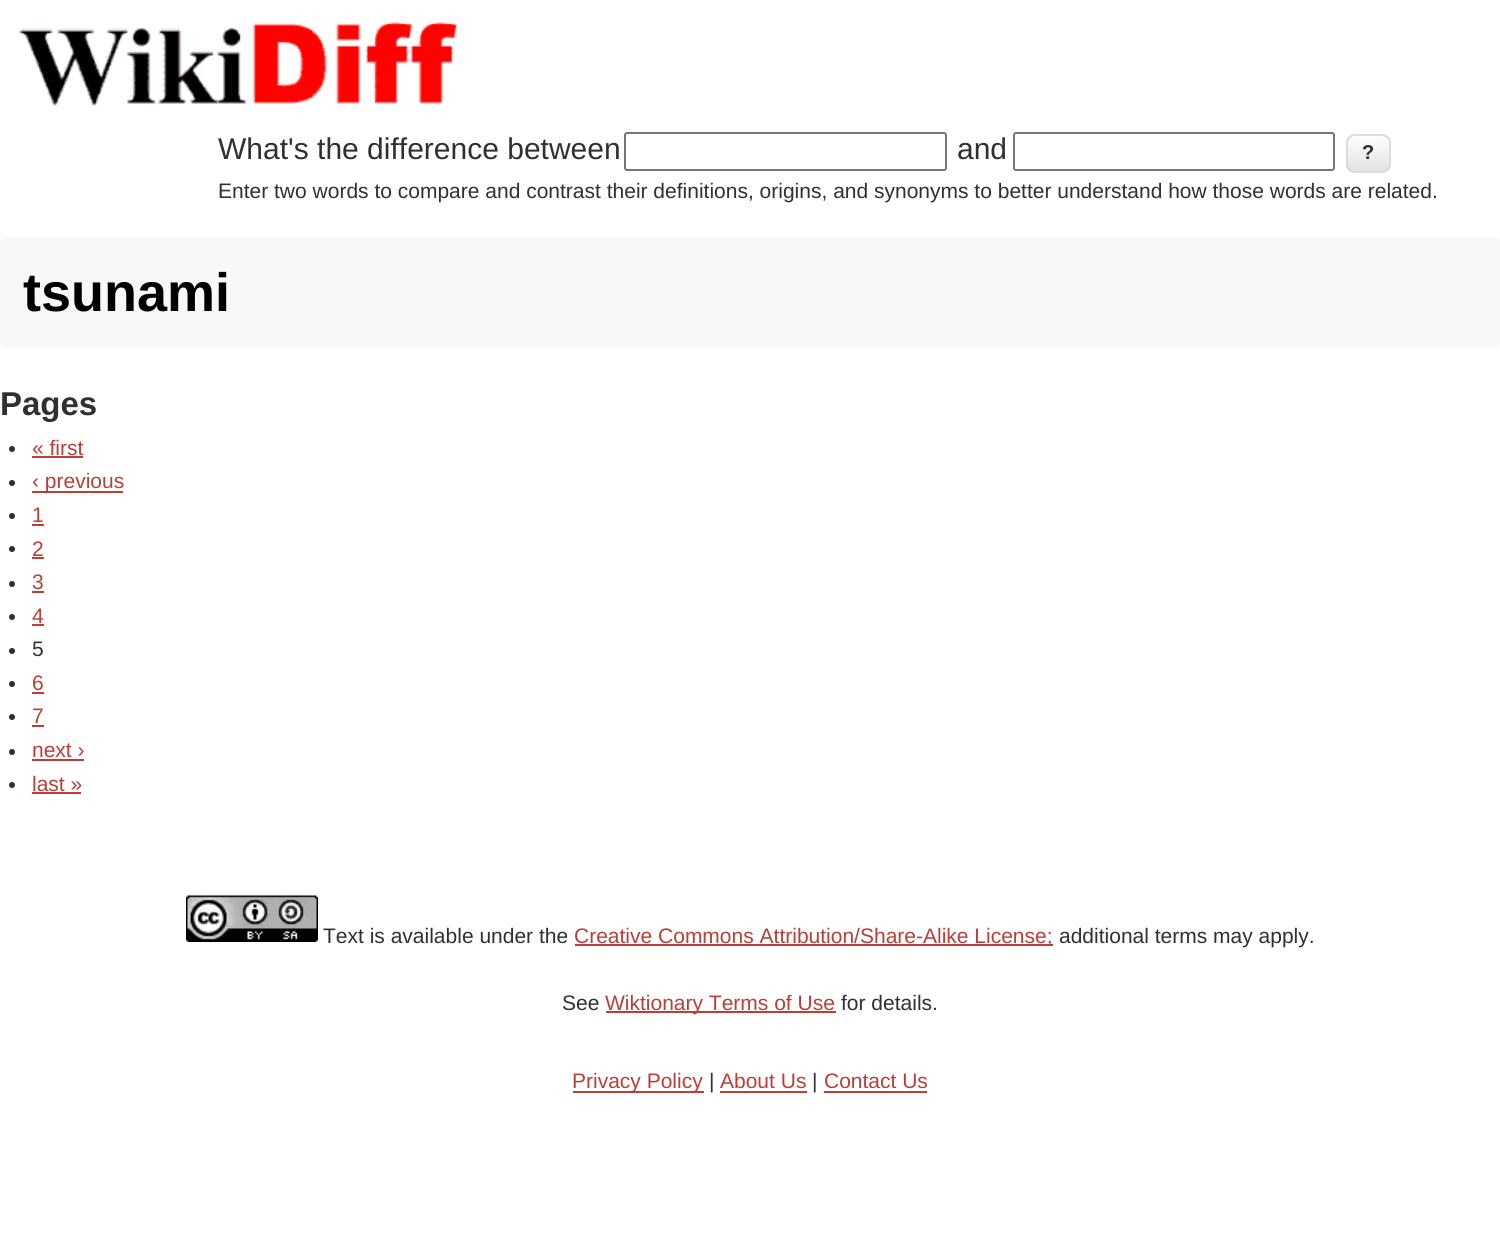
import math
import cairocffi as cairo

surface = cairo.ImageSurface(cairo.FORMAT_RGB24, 1500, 1248)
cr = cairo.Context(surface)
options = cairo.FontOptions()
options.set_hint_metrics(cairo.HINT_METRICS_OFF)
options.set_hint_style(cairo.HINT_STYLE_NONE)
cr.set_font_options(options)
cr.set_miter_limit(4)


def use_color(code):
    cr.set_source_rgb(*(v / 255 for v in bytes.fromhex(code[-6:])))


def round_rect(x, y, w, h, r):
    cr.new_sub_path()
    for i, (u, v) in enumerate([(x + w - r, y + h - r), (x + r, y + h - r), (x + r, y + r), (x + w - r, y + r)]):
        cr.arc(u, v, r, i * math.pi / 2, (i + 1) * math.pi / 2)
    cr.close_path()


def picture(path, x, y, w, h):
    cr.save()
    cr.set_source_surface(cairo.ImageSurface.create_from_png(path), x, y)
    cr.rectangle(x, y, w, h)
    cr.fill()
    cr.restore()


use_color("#ffffff")
cr.paint()
picture("img1.png", 19, 22, 439, 84)
cr.select_font_face("Liberation Sans")
cr.set_font_size(30)
use_color("#303030")
cr.move_to(218, 159)
cr.show_text("What's the difference between")
round_rect(625, 133, 321, 37, 2)
use_color("#767676")
cr.stroke()
use_color("#303030")
cr.move_to(957, 159)
cr.show_text("and")
round_rect(1014, 133, 320, 37, 2)
use_color("#767676")
cr.stroke()
cr.save()
round_rect(1346, 134, 45, 39, 9)
cr.clip()
gradient = cairo.LinearGradient(1368, 135, 1368, 171)
gradient.add_color_stop_rgba(0, 1, 1, 1, 1)
gradient.add_color_stop_rgba(1, 0.89, 0.89, 0.89, 1)
cr.set_source(gradient)
cr.rectangle(1346, 135, 45, 36)
cr.fill()
cr.restore()
round_rect(1347, 135, 43, 37, 8)
use_color("#dbdbdb")
cr.stroke()
cr.select_font_face("Liberation Sans", cairo.FONT_SLANT_NORMAL, cairo.FONT_WEIGHT_BOLD)
cr.set_font_size(20)
use_color("#303030")
cr.move_to(1362, 159)
cr.show_text("?")
cr.select_font_face("Liberation Sans")
cr.set_font_size(21)
cr.move_to(218, 198)
cr.show_text("Enter two words to compare and contrast their definitions, origins, and synonyms to better understand how those words are related.")
use_color("#f8f8f8")
round_rect(0, 237, 1500, 111, 6)
cr.fill()
cr.select_font_face("Liberation Sans", cairo.FONT_SLANT_NORMAL, cairo.FONT_WEIGHT_BOLD)
cr.set_font_size(54)
use_color("#000000")
cr.move_to(23, 311)
cr.show_text("tsunami")
cr.set_font_size(33)
use_color("#303030")
cr.move_to(0, 415)
cr.show_text("Pages")
cr.new_path()
cr.arc(12, 449, 3, 0, 2 * math.pi)
cr.fill()
cr.select_font_face("Liberation Sans")
cr.set_font_size(21)
use_color("#ba3f36")
cr.move_to(32, 455)
cr.show_text("« first")
cr.rectangle(32, 456, 51, 2)
cr.fill()
use_color("#303030")
cr.arc(12, 483, 3, 0, 2 * math.pi)
cr.fill()
use_color("#ba3f36")
cr.rectangle(32, 491, 91, 2)
cr.fill()
cr.move_to(32, 488)
cr.show_text("‹ previous")
use_color("#303030")
cr.new_path()
cr.arc(12, 516, 3, 0, 2 * math.pi)
cr.fill()
use_color("#ba3f36")
cr.move_to(32, 522)
cr.show_text("1")
cr.rectangle(32, 524, 12, 2)
cr.fill()
use_color("#303030")
cr.arc(12, 549, 3, 0, 2 * math.pi)
cr.fill()
use_color("#ba3f36")
cr.move_to(32, 556)
cr.show_text("2")
cr.rectangle(32, 557, 12, 2)
cr.fill()
use_color("#303030")
cr.arc(12, 584, 3, 0, 2 * math.pi)
cr.fill()
use_color("#ba3f36")
cr.move_to(32, 589)
cr.show_text("3")
cr.rectangle(32, 591, 12, 2)
cr.fill()
use_color("#303030")
cr.arc(12, 617, 3, 0, 2 * math.pi)
cr.fill()
use_color("#ba3f36")
cr.move_to(32, 623)
cr.show_text("4")
cr.rectangle(32, 624, 12, 2)
cr.fill()
use_color("#303030")
cr.arc(12, 651, 3, 0, 2 * math.pi)
cr.fill()
cr.move_to(32, 656)
cr.show_text("5")
cr.new_path()
cr.arc(12, 684, 3, 0, 2 * math.pi)
cr.fill()
use_color("#ba3f36")
cr.move_to(32, 690)
cr.show_text("6")
cr.rectangle(32, 692, 12, 2)
cr.fill()
use_color("#303030")
cr.arc(12, 717, 3, 0, 2 * math.pi)
cr.fill()
use_color("#ba3f36")
cr.move_to(32, 723)
cr.show_text("7")
cr.rectangle(32, 725, 12, 2)
cr.fill()
use_color("#303030")
cr.arc(12, 752, 3, 0, 2 * math.pi)
cr.fill()
use_color("#ba3f36")
cr.move_to(32, 757)
cr.show_text("next ›")
cr.rectangle(32, 759, 52, 2)
cr.fill()
use_color("#303030")
cr.arc(12, 785, 3, 0, 2 * math.pi)
cr.fill()
use_color("#ba3f36")
cr.move_to(32, 791)
cr.show_text("last »")
cr.rectangle(32, 792, 49, 2)
cr.fill()
picture("img2.png", 186, 895, 132, 47)
use_color("#303030")
cr.move_to(323, 943)
cr.show_text("Text is available under the")
use_color("#ba3f36")
cr.rectangle(575, 944, 478, 2)
cr.fill()
cr.move_to(574, 943)
cr.show_text("Creative Commons Attribution/Share-Alike License;")
use_color("#303030")
cr.move_to(1059, 943)
cr.show_text("additional terms may apply.")
cr.move_to(562, 1010)
cr.show_text("See")
use_color("#ba3f36")
cr.rectangle(606, 1011, 230, 2)
cr.fill()
cr.move_to(605, 1010)
cr.show_text("Wiktionary Terms of Use")
use_color("#303030")
cr.move_to(841, 1010)
cr.show_text("for details.")
use_color("#ba3f36")
cr.rectangle(573, 1091, 131, 2)
cr.fill()
cr.move_to(572, 1088)
cr.show_text("Privacy Policy")
use_color("#303030")
cr.move_to(709, 1088)
cr.show_text("|")
use_color("#ba3f36")
cr.move_to(720, 1088)
cr.show_text("About Us")
cr.rectangle(720, 1091, 87, 2)
cr.fill()
use_color("#303030")
cr.move_to(812, 1088)
cr.show_text("|")
use_color("#ba3f36")
cr.move_to(824, 1088)
cr.show_text("Contact Us")
cr.rectangle(824, 1091, 103, 2)
cr.fill()
surface.write_to_png("result.png")
